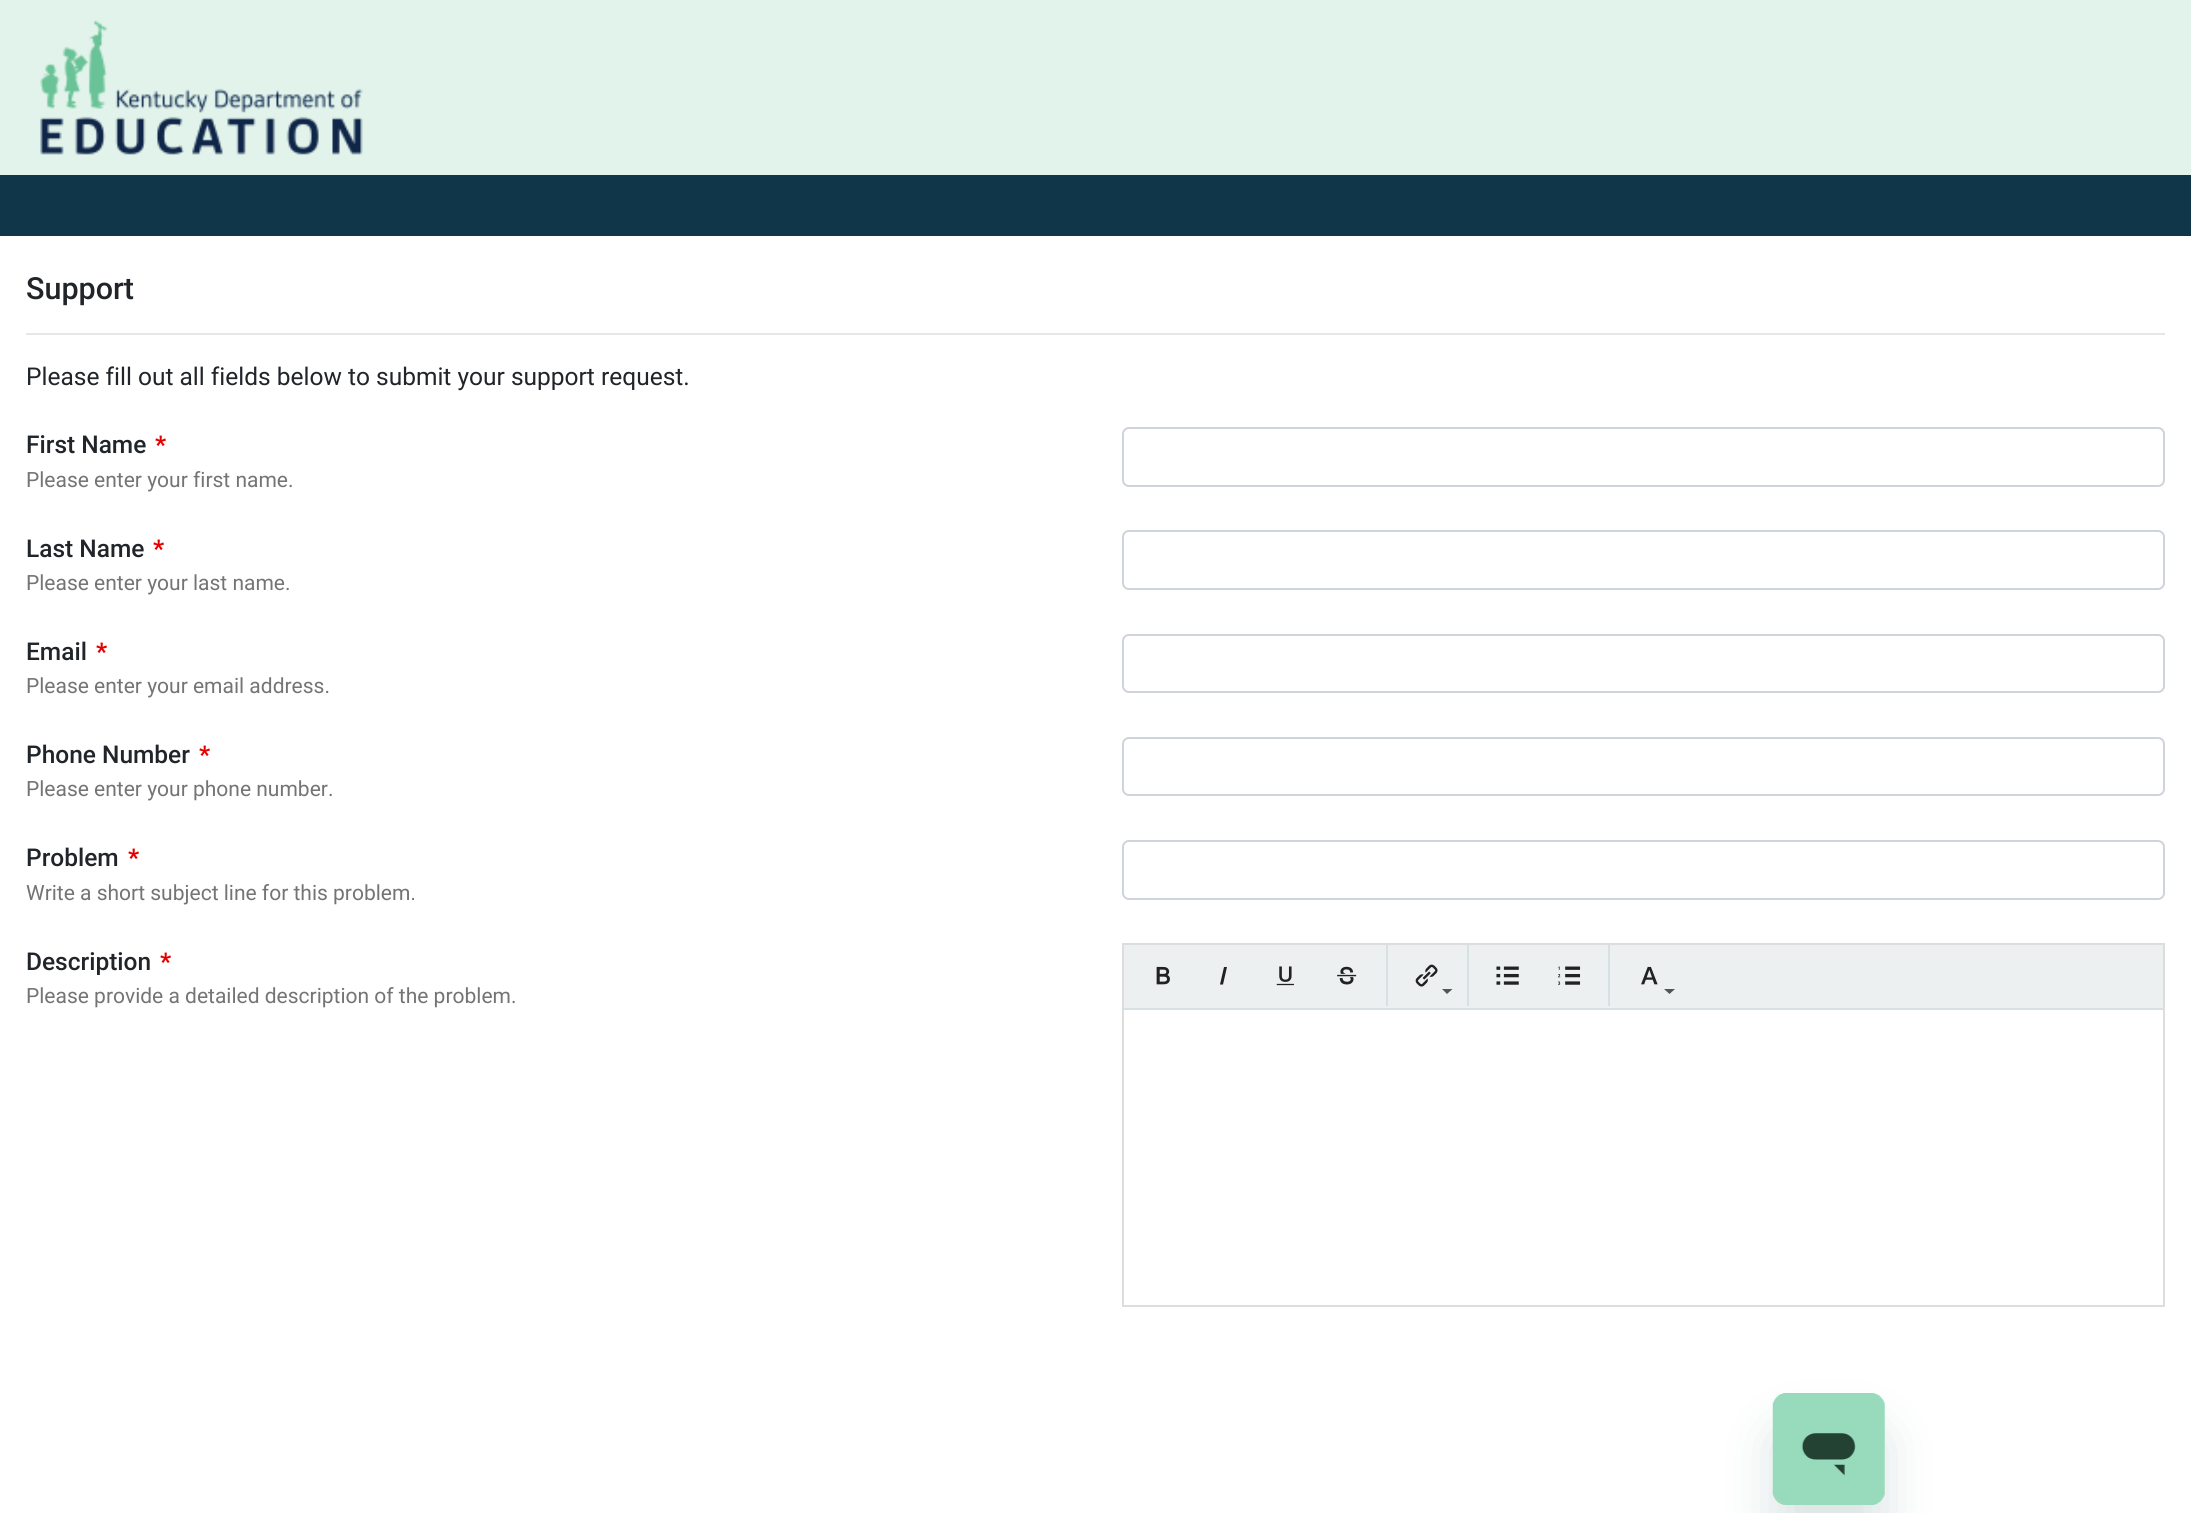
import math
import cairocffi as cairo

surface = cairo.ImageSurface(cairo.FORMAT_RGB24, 2191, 1513)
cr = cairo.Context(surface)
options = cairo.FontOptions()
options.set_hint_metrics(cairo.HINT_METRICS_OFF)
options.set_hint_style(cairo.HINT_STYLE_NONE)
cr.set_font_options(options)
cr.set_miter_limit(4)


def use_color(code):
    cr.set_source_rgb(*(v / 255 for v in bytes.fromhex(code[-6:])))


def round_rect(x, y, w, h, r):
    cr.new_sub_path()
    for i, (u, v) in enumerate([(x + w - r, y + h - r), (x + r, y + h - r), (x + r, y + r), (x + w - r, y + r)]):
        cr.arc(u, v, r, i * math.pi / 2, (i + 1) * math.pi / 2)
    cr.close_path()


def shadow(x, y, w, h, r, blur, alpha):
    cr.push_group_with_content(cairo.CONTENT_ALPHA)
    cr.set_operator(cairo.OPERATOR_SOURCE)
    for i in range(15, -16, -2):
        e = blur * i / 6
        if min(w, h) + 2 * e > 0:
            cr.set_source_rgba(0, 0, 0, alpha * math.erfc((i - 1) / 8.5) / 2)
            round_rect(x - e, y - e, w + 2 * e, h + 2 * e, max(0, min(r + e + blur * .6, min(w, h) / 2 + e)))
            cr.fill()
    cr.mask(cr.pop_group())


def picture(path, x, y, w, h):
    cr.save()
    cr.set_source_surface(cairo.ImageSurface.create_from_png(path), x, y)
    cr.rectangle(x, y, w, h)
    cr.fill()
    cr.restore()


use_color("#ffffff")
cr.paint()
use_color("#e1f3ea")
cr.rectangle(0, 0, 2191, 175)
cr.fill()
picture("img1.png", 40, 20, 323, 135)
use_color("#103649")
cr.rectangle(0, 175, 2191, 61)
cr.fill()
cr.select_font_face("Roboto Medium")
cr.set_font_size(30.5)
use_color("#212529")
cr.move_to(26, 299)
cr.show_text("Support")
use_color("#e6e6e6")
cr.rectangle(26, 333, 2139, 2)
cr.fill()
cr.select_font_face("Roboto")
cr.set_font_size(24.5)
use_color("#212529")
cr.move_to(26, 385)
cr.show_text("Please fill out all fields below to submit your support request.")
cr.select_font_face("Roboto Medium")
cr.move_to(26, 453)
cr.show_text("First Name")
cr.select_font_face("Roboto", cairo.FONT_SLANT_NORMAL, cairo.FONT_WEIGHT_BOLD)
use_color("#e50000")
cr.move_to(155, 453)
cr.show_text("*")
cr.select_font_face("Roboto")
cr.set_font_size(21)
use_color("#747474")
cr.move_to(26, 487)
cr.show_text("Please enter your first name.")
round_rect(1123, 428, 1041, 58, 6)
use_color("#ced4da")
cr.stroke()
cr.select_font_face("Roboto Medium")
cr.set_font_size(24.5)
use_color("#212529")
cr.move_to(26, 557)
cr.show_text("Last Name")
cr.select_font_face("Roboto", cairo.FONT_SLANT_NORMAL, cairo.FONT_WEIGHT_BOLD)
use_color("#e50000")
cr.move_to(153, 557)
cr.show_text("*")
cr.select_font_face("Roboto")
cr.set_font_size(21)
use_color("#747474")
cr.move_to(26, 590)
cr.show_text("Please enter your last name.")
round_rect(1123, 531, 1041, 58, 6)
use_color("#ced4da")
cr.stroke()
cr.select_font_face("Roboto Medium")
cr.set_font_size(24.5)
use_color("#212529")
cr.move_to(26, 660)
cr.show_text("Email")
cr.select_font_face("Roboto", cairo.FONT_SLANT_NORMAL, cairo.FONT_WEIGHT_BOLD)
use_color("#e50000")
cr.move_to(96, 660)
cr.show_text("*")
cr.select_font_face("Roboto")
cr.set_font_size(21)
use_color("#747474")
cr.move_to(26, 693)
cr.show_text("Please enter your email address.")
round_rect(1123, 635, 1041, 57, 6)
use_color("#ced4da")
cr.stroke()
cr.select_font_face("Roboto Medium")
cr.set_font_size(24.5)
use_color("#212529")
cr.move_to(26, 763)
cr.show_text("Phone Number")
cr.select_font_face("Roboto", cairo.FONT_SLANT_NORMAL, cairo.FONT_WEIGHT_BOLD)
use_color("#e50000")
cr.move_to(199, 763)
cr.show_text("*")
cr.select_font_face("Roboto")
cr.set_font_size(21)
use_color("#747474")
cr.move_to(26, 796)
cr.show_text("Please enter your phone number.")
round_rect(1123, 738, 1041, 57, 6)
use_color("#ced4da")
cr.stroke()
cr.select_font_face("Roboto Medium")
cr.set_font_size(24.5)
use_color("#212529")
cr.move_to(26, 866)
cr.show_text("Problem")
cr.select_font_face("Roboto", cairo.FONT_SLANT_NORMAL, cairo.FONT_WEIGHT_BOLD)
use_color("#e50000")
cr.move_to(128, 866)
cr.show_text("*")
cr.select_font_face("Roboto")
cr.set_font_size(21)
use_color("#747474")
cr.move_to(26, 900)
cr.show_text("Write a short subject line for this problem.")
round_rect(1123, 841, 1041, 58, 6)
use_color("#ced4da")
cr.stroke()
cr.select_font_face("Roboto Medium")
cr.set_font_size(24.5)
use_color("#212529")
cr.move_to(26, 970)
cr.show_text("Description")
cr.select_font_face("Roboto", cairo.FONT_SLANT_NORMAL, cairo.FONT_WEIGHT_BOLD)
use_color("#e50000")
cr.move_to(160, 970)
cr.show_text("*")
cr.select_font_face("Roboto")
cr.set_font_size(21)
use_color("#747474")
cr.move_to(26, 1003)
cr.show_text("Please provide a detailed description of the problem.")
cr.rectangle(1123, 944, 1041, 362)
use_color("#dddddd")
cr.stroke()
use_color("#ecf0f1")
cr.rectangle(1124, 945, 1039, 63)
cr.fill()
use_color("#d7e0e2")
cr.rectangle(1124, 1008, 1039, 2)
cr.fill()
picture("img2.png", 1156, 966, 14, 19)
use_color("#222222")
cr.new_path()
cr.move_to(1220, 984.5)
cr.line_to(1224, 967)
cr.line_to(1227, 967)
cr.line_to(1223, 984.5)
cr.close_path()
cr.fill()
picture("img3.png", 1276, 966, 18, 20)
picture("img4.png", 1337, 966, 20, 19)
use_color("#d7e0e2")
cr.rectangle(1386, 945, 2, 61)
cr.fill()
picture("img5.png", 1415, 964, 23, 23)
use_color("#555555")
cr.new_path()
cr.move_to(1442, 989)
cr.line_to(1452.5, 989)
cr.line_to(1447, 994)
cr.close_path()
cr.fill()
use_color("#d7e0e2")
cr.rectangle(1467, 945, 2, 61)
cr.fill()
picture("img6.png", 1496, 966, 23, 19)
picture("img7.png", 1558, 966, 23, 19)
cr.rectangle(1608, 945, 2, 61)
cr.fill()
picture("img8.png", 1641, 966, 17, 19)
use_color("#555555")
cr.new_path()
cr.move_to(1664, 989)
cr.line_to(1675, 989)
cr.line_to(1669.5, 994)
cr.close_path()
cr.fill()
use_color("#17494d")
shadow(1773, 1428, 112, 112, 14, 26, 0.15)
picture("img9.png", 1772, 1393, 113, 112)
surface.write_to_png("result.png")
